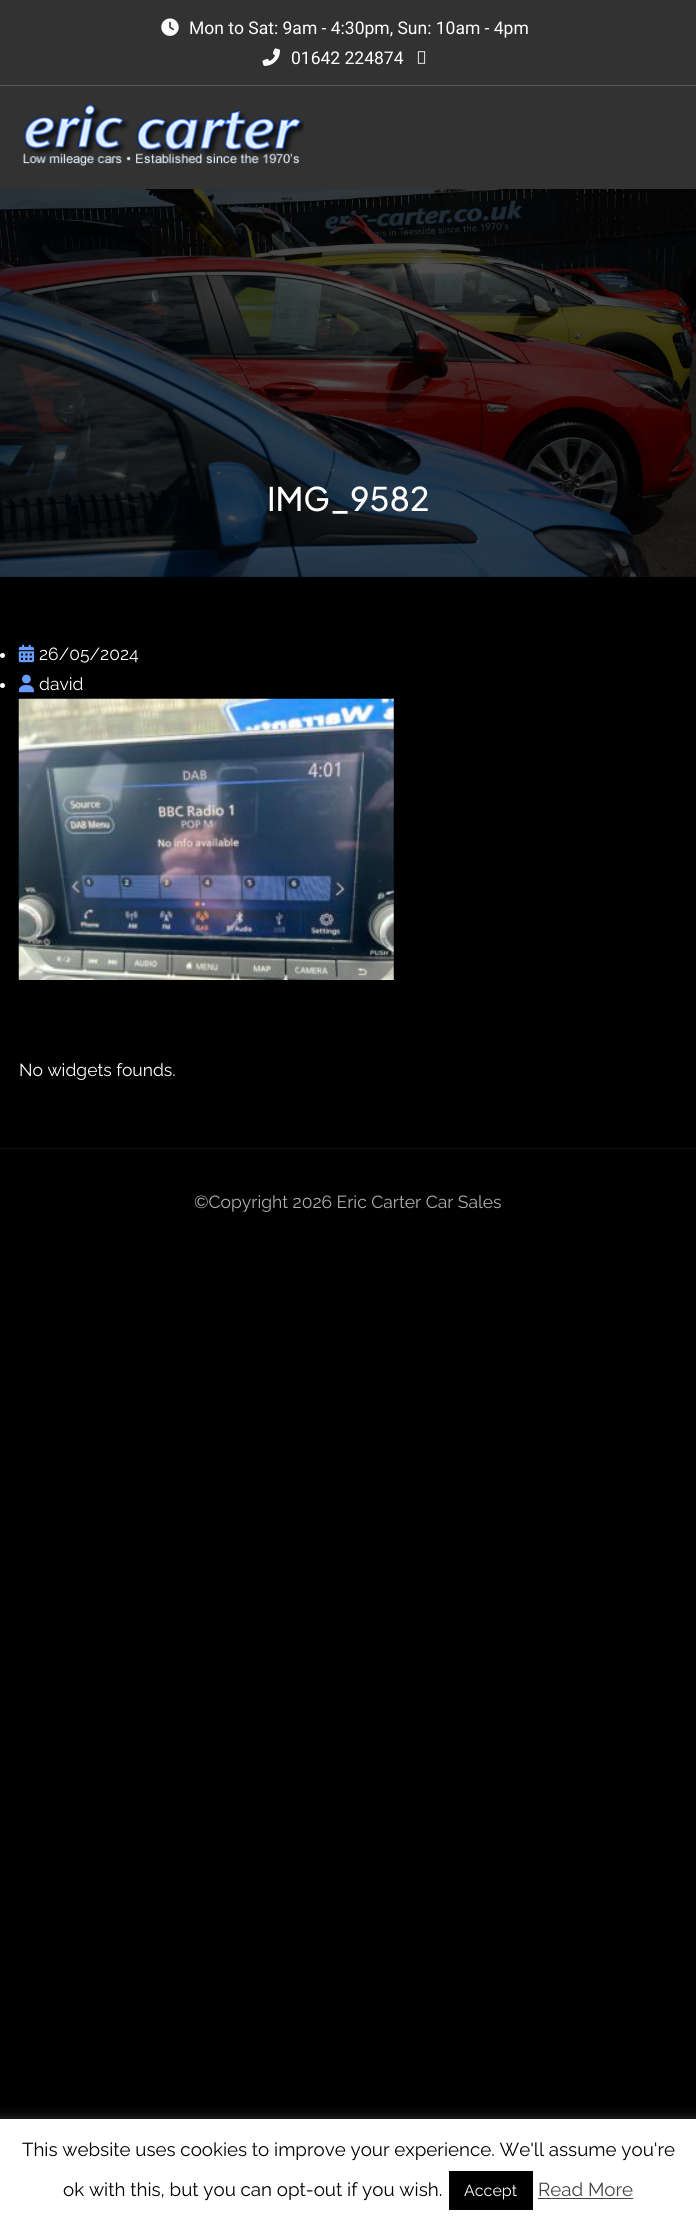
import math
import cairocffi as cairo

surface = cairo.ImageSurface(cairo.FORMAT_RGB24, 696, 2225)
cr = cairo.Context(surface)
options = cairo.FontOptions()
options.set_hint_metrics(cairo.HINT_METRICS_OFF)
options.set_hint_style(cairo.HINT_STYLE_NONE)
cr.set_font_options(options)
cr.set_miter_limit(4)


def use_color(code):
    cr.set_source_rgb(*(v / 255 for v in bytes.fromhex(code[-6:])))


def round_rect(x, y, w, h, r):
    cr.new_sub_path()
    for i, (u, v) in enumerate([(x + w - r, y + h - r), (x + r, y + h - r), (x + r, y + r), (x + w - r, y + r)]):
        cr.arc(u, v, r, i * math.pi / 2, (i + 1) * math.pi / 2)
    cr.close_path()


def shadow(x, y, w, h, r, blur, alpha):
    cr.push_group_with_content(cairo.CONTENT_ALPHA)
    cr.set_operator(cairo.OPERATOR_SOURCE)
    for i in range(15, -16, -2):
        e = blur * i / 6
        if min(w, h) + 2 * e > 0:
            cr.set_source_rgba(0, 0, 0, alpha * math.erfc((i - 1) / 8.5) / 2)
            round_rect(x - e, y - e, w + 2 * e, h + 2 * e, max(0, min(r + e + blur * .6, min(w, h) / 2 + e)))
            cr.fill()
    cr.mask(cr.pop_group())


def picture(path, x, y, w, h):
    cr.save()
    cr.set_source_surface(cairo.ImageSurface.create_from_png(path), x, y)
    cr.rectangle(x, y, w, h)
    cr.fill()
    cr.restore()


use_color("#000000")
cr.paint()
use_color("#323232")
cr.rectangle(0, 0, 696, 189)
cr.fill()
use_color("#5b5b5b")
cr.rectangle(0, 85, 696, 1)
cr.fill()
picture("img1.png", 161, 18, 18, 18)
cr.select_font_face("Roboto")
cr.set_font_size(17.5)
use_color("#ffffff")
cr.move_to(189, 34)
cr.show_text("Mon to Sat: 9am - 4:30pm, Sun: 10am - 4pm")
picture("img2.png", 262, 48, 18, 18)
cr.move_to(291, 64)
cr.show_text("01642 224874")
picture("img3.png", 417, 51, 9, 13)
picture("img4.png", 23, 105, 281, 62)
picture("img5.png", 0, 189, 696, 388)
cr.select_font_face("Plus Jakarta Sans Medium")
cr.set_font_size(32.5)
cr.move_to(267, 511)
cr.show_text("IMG_9582")
cr.new_path()
cr.arc(2.5, 655.5, 2.5, 0, 2 * math.pi)
cr.fill()
picture("img6.png", 18, 644, 17, 19)
cr.select_font_face("Raleway Thin")
cr.set_font_size(17.5)
cr.move_to(39, 660)
cr.show_text("26/05/2024")
cr.new_path()
cr.arc(2.5, 685.5, 2.5, 0, 2 * math.pi)
cr.fill()
picture("img7.png", 18, 674, 16, 19)
cr.move_to(39, 690)
cr.show_text("david")
picture("img8.png", 18, 698, 376, 282)
cr.move_to(19, 1076)
cr.show_text("No widgets founds.")
use_color("#141414")
cr.rectangle(0, 1148, 696, 1)
cr.fill()
use_color("#afafaf")
cr.move_to(194, 1208)
cr.show_text("©Copyright 2026 Eric Carter Car Sales")
use_color("#acabab")
shadow(0, 2118, 696, 106, 0, 6, 0.3)
use_color("#ffffff")
cr.rectangle(0, 2119, 696, 106)
cr.fill()
cr.set_font_size(18.75)
use_color("#000000")
cr.move_to(22, 2156)
cr.show_text("This website uses cookies to improve your experience. We'll assume you're")
cr.move_to(63, 2196)
cr.show_text("ok with this, but you can opt-out if you wish.")
cr.rectangle(449, 2171, 84, 39)
cr.fill()
cr.set_font_size(16)
use_color("#ffffff")
cr.move_to(464, 2196)
cr.show_text("Accept")
cr.set_font_size(18.75)
use_color("#444444")
cr.move_to(538, 2196)
cr.show_text("Read More")
cr.rectangle(538, 2198, 95, 1)
cr.fill()
surface.write_to_png("result.png")
